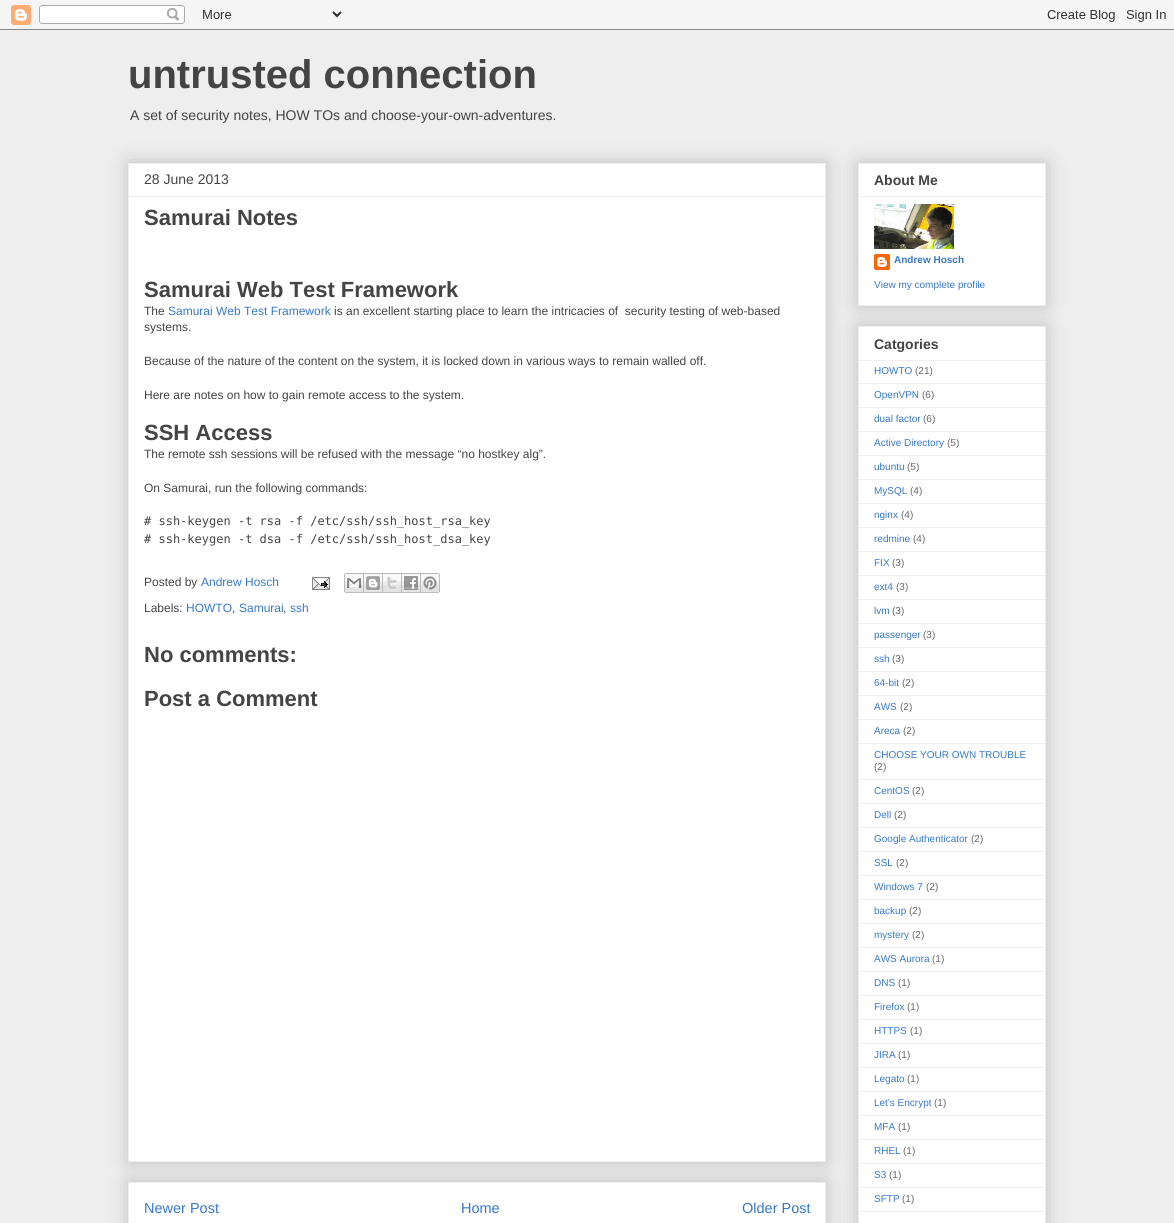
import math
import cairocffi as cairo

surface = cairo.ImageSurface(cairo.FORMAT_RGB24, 1174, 1223)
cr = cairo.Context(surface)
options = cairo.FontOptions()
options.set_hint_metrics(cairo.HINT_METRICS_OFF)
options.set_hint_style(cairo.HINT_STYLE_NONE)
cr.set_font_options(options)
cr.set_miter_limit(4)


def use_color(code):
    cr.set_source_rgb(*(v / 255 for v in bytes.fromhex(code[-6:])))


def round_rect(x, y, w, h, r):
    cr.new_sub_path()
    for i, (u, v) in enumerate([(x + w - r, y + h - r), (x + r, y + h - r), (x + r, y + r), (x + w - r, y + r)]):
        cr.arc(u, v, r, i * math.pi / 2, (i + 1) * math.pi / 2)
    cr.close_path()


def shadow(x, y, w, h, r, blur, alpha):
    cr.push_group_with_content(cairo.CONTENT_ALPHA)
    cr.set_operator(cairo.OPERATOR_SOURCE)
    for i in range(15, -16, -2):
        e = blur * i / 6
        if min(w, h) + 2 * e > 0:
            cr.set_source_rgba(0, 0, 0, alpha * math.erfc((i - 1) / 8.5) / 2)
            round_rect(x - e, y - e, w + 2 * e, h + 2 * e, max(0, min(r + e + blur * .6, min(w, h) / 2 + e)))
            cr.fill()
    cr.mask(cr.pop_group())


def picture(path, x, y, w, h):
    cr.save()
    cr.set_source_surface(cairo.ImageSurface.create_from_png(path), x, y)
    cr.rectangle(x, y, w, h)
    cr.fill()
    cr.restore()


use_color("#eeeeee")
cr.paint()
picture("img1.png", 0, 0, 1174, 30)
cr.select_font_face("Liberation Sans", cairo.FONT_SLANT_NORMAL, cairo.FONT_WEIGHT_BOLD)
cr.set_font_size(40)
use_color("#444444")
cr.move_to(128, 88)
cr.show_text("untrusted connection")
cr.select_font_face("Liberation Sans")
cr.set_font_size(14)
cr.move_to(130, 120)
cr.show_text("A set of security notes, HOW TOs and choose-your-own-adventures.")
use_color("#000000")
shadow(128, 1182, 698, 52, 0, 10, 0.2)
use_color("#ffffff")
cr.rectangle(128.5, 1182.5, 697, 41)
cr.fill_preserve()
use_color("#eeeeee")
cr.set_line_width(1)
cr.stroke()
use_color("#000000")
shadow(128, 163, 698, 999, 0, 10, 0.2)
use_color("#ffffff")
cr.rectangle(128.5, 163.5, 697, 998)
cr.fill_preserve()
use_color("#eeeeee")
cr.stroke()
use_color("#444444")
cr.move_to(144, 184)
cr.show_text("28 June 2013")
use_color("#eeeeee")
cr.rectangle(129, 196, 696, 1)
cr.fill()
cr.select_font_face("Liberation Sans", cairo.FONT_SLANT_NORMAL, cairo.FONT_WEIGHT_BOLD)
cr.set_font_size(22)
use_color("#444444")
cr.move_to(144, 225)
cr.show_text("Samurai Notes")
cr.move_to(144, 297)
cr.show_text("Samurai Web Test Framework")
cr.select_font_face("Liberation Sans")
cr.set_font_size(12)
cr.move_to(144, 315)
cr.show_text("The")
use_color("#3778cd")
cr.move_to(168, 315)
cr.show_text("Samurai Web Test Framework")
use_color("#444444")
cr.move_to(334, 315)
cr.show_text("is an excellent starting place to learn the intricacies of  security testing of web-based")
cr.move_to(144, 331)
cr.show_text("systems.")
cr.move_to(144, 365)
cr.show_text("Because of the nature of the content on the system, it is locked down in various ways to remain walled off.")
cr.move_to(144, 399)
cr.show_text("Here are notes on how to gain remote access to the system.")
cr.select_font_face("Liberation Sans", cairo.FONT_SLANT_NORMAL, cairo.FONT_WEIGHT_BOLD)
cr.set_font_size(22)
cr.move_to(144, 440)
cr.show_text("SSH Access")
cr.select_font_face("Liberation Sans")
cr.set_font_size(12)
cr.move_to(144, 458)
cr.show_text("The remote ssh sessions will be refused with the message “no hostkey alg”.")
cr.move_to(144, 492)
cr.show_text("On Samurai, run the following commands:")
cr.select_font_face("DejaVu Sans Mono")
cr.move_to(144, 525)
cr.show_text("# ssh-keygen -t rsa -f /etc/ssh/ssh_host_rsa_key")
cr.move_to(144, 543)
cr.show_text("# ssh-keygen -t dsa -f /etc/ssh/ssh_host_dsa_key")
cr.select_font_face("Liberation Sans")
cr.move_to(144, 586)
cr.show_text("Posted by")
use_color("#3778cd")
cr.move_to(201, 586)
cr.show_text("Andrew Hosch")
picture("img2.png", 312, 577, 18, 13)
picture("img3.png", 344, 573, 20, 20)
picture("img4.png", 364, 573, 19, 20)
picture("img5.png", 383, 573, 19, 20)
picture("img6.png", 402, 573, 19, 20)
picture("img7.png", 421, 573, 19, 20)
use_color("#444444")
cr.move_to(144, 612)
cr.show_text("Labels:")
use_color("#3778cd")
cr.move_to(186, 612)
cr.show_text("HOWTO")
use_color("#444444")
cr.move_to(232, 612)
cr.show_text(",")
use_color("#3778cd")
cr.move_to(239, 612)
cr.show_text("Samurai")
use_color("#444444")
cr.move_to(283, 612)
cr.show_text(",")
use_color("#3778cd")
cr.move_to(290, 612)
cr.show_text("ssh")
cr.select_font_face("Liberation Sans", cairo.FONT_SLANT_NORMAL, cairo.FONT_WEIGHT_BOLD)
cr.set_font_size(22)
use_color("#444444")
cr.move_to(144, 662)
cr.show_text("No comments:")
cr.move_to(144, 706)
cr.show_text("Post a Comment")
cr.select_font_face("Liberation Sans")
cr.set_font_size(14.5)
use_color("#3778cd")
cr.move_to(144, 1213)
cr.show_text("Newer Post")
cr.move_to(461, 1213)
cr.show_text("Home")
cr.move_to(742, 1213)
cr.show_text("Older Post")
use_color("#000000")
shadow(858, 163, 188, 143, 0, 10, 0.2)
use_color("#ffffff")
cr.rectangle(858.5, 163.5, 187, 142)
cr.fill_preserve()
use_color("#eeeeee")
cr.stroke()
cr.select_font_face("Liberation Sans", cairo.FONT_SLANT_NORMAL, cairo.FONT_WEIGHT_BOLD)
cr.set_font_size(14)
use_color("#444444")
cr.move_to(874, 185)
cr.show_text("About Me")
use_color("#eeeeee")
cr.rectangle(859, 196, 186, 1)
cr.fill()
picture("img8.png", 874, 204, 80, 45)
picture("img9.png", 874, 254, 16, 16)
cr.set_font_size(10)
use_color("#3778cd")
cr.move_to(894, 263)
cr.show_text("Andrew Hosch")
cr.select_font_face("Liberation Sans")
cr.move_to(874, 288)
cr.show_text("View my complete profile")
use_color("#000000")
shadow(858, 326, 188, 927, 0, 10, 0.2)
use_color("#ffffff")
cr.rectangle(858.5, 326.5, 187, 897)
cr.fill_preserve()
use_color("#eeeeee")
cr.stroke()
cr.select_font_face("Liberation Sans", cairo.FONT_SLANT_NORMAL, cairo.FONT_WEIGHT_BOLD)
cr.set_font_size(14)
use_color("#444444")
cr.move_to(874, 349)
cr.show_text("Catgories")
use_color("#eeeeee")
cr.rectangle(859, 360, 186, 1)
cr.fill()
cr.select_font_face("Liberation Sans")
cr.set_font_size(10)
use_color("#3778cd")
cr.move_to(874, 374)
cr.show_text("HOWTO")
use_color("#666666")
cr.move_to(915, 374)
cr.show_text("(21)")
use_color("#eeeeee")
cr.rectangle(859, 383, 186, 1)
cr.fill()
use_color("#3778cd")
cr.move_to(874, 398)
cr.show_text("OpenVPN")
use_color("#666666")
cr.move_to(922, 398)
cr.show_text("(6)")
use_color("#eeeeee")
cr.rectangle(859, 407, 186, 1)
cr.fill()
use_color("#3778cd")
cr.move_to(874, 422)
cr.show_text("dual factor")
use_color("#666666")
cr.move_to(923, 422)
cr.show_text("(6)")
use_color("#eeeeee")
cr.rectangle(859, 431, 186, 1)
cr.fill()
use_color("#3778cd")
cr.move_to(874, 446)
cr.show_text("Active Directory")
use_color("#666666")
cr.move_to(947, 446)
cr.show_text("(5)")
use_color("#eeeeee")
cr.rectangle(859, 455, 186, 1)
cr.fill()
use_color("#3778cd")
cr.move_to(874, 470)
cr.show_text("ubuntu")
use_color("#666666")
cr.move_to(907, 470)
cr.show_text("(5)")
use_color("#eeeeee")
cr.rectangle(859, 479, 186, 1)
cr.fill()
use_color("#3778cd")
cr.move_to(874, 494)
cr.show_text("MySQL")
use_color("#666666")
cr.move_to(910, 494)
cr.show_text("(4)")
use_color("#eeeeee")
cr.rectangle(859, 503, 186, 1)
cr.fill()
use_color("#3778cd")
cr.move_to(874, 518)
cr.show_text("nginx")
use_color("#666666")
cr.move_to(901, 518)
cr.show_text("(4)")
use_color("#eeeeee")
cr.rectangle(859, 527, 186, 1)
cr.fill()
use_color("#3778cd")
cr.move_to(874, 542)
cr.show_text("redmine")
use_color("#666666")
cr.move_to(913, 542)
cr.show_text("(4)")
use_color("#eeeeee")
cr.rectangle(859, 551, 186, 1)
cr.fill()
use_color("#3778cd")
cr.move_to(874, 566)
cr.show_text("FIX")
use_color("#666666")
cr.move_to(892, 566)
cr.show_text("(3)")
use_color("#eeeeee")
cr.rectangle(859, 575, 186, 1)
cr.fill()
use_color("#3778cd")
cr.move_to(874, 590)
cr.show_text("ext4")
use_color("#666666")
cr.move_to(896, 590)
cr.show_text("(3)")
use_color("#eeeeee")
cr.rectangle(859, 599, 186, 1)
cr.fill()
use_color("#3778cd")
cr.move_to(874, 614)
cr.show_text("lvm")
use_color("#666666")
cr.move_to(892, 614)
cr.show_text("(3)")
use_color("#eeeeee")
cr.rectangle(859, 623, 186, 1)
cr.fill()
use_color("#3778cd")
cr.move_to(874, 638)
cr.show_text("passenger")
use_color("#666666")
cr.move_to(923, 638)
cr.show_text("(3)")
use_color("#eeeeee")
cr.rectangle(859, 647, 186, 1)
cr.fill()
use_color("#3778cd")
cr.move_to(874, 662)
cr.show_text("ssh")
use_color("#666666")
cr.move_to(892, 662)
cr.show_text("(3)")
use_color("#eeeeee")
cr.rectangle(859, 671, 186, 1)
cr.fill()
use_color("#3778cd")
cr.move_to(874, 686)
cr.show_text("64-bit")
use_color("#666666")
cr.move_to(902, 686)
cr.show_text("(2)")
use_color("#eeeeee")
cr.rectangle(859, 695, 186, 1)
cr.fill()
use_color("#3778cd")
cr.move_to(874, 710)
cr.show_text("AWS")
use_color("#666666")
cr.move_to(900, 710)
cr.show_text("(2)")
use_color("#eeeeee")
cr.rectangle(859, 719, 186, 1)
cr.fill()
use_color("#3778cd")
cr.move_to(874, 734)
cr.show_text("Areca")
use_color("#666666")
cr.move_to(903, 734)
cr.show_text("(2)")
use_color("#eeeeee")
cr.rectangle(859, 743, 186, 1)
cr.fill()
use_color("#3778cd")
cr.move_to(874, 758)
cr.show_text("CHOOSE YOUR OWN TROUBLE")
use_color("#666666")
cr.move_to(874, 770)
cr.show_text("(2)")
use_color("#eeeeee")
cr.rectangle(859, 779, 186, 1)
cr.fill()
use_color("#3778cd")
cr.move_to(874, 794)
cr.show_text("CentOS")
use_color("#666666")
cr.move_to(912, 794)
cr.show_text("(2)")
use_color("#eeeeee")
cr.rectangle(859, 803, 186, 1)
cr.fill()
use_color("#3778cd")
cr.move_to(874, 818)
cr.show_text("Dell")
use_color("#666666")
cr.move_to(894, 818)
cr.show_text("(2)")
use_color("#eeeeee")
cr.rectangle(859, 827, 186, 1)
cr.fill()
use_color("#3778cd")
cr.move_to(874, 842)
cr.show_text("Google Authenticator")
use_color("#666666")
cr.move_to(971, 842)
cr.show_text("(2)")
use_color("#eeeeee")
cr.rectangle(859, 851, 186, 1)
cr.fill()
use_color("#3778cd")
cr.move_to(874, 866)
cr.show_text("SSL")
use_color("#666666")
cr.move_to(896, 866)
cr.show_text("(2)")
use_color("#eeeeee")
cr.rectangle(859, 875, 186, 1)
cr.fill()
use_color("#3778cd")
cr.move_to(874, 890)
cr.show_text("Windows 7")
use_color("#666666")
cr.move_to(926, 890)
cr.show_text("(2)")
use_color("#eeeeee")
cr.rectangle(859, 899, 186, 1)
cr.fill()
use_color("#3778cd")
cr.move_to(874, 914)
cr.show_text("backup")
use_color("#666666")
cr.move_to(909, 914)
cr.show_text("(2)")
use_color("#eeeeee")
cr.rectangle(859, 923, 186, 1)
cr.fill()
use_color("#3778cd")
cr.move_to(874, 938)
cr.show_text("mystery")
use_color("#666666")
cr.move_to(912, 938)
cr.show_text("(2)")
use_color("#eeeeee")
cr.rectangle(859, 947, 186, 1)
cr.fill()
use_color("#3778cd")
cr.move_to(874, 962)
cr.show_text("AWS Aurora")
use_color("#666666")
cr.move_to(932, 962)
cr.show_text("(1)")
use_color("#eeeeee")
cr.rectangle(859, 971, 186, 1)
cr.fill()
use_color("#3778cd")
cr.move_to(874, 986)
cr.show_text("DNS")
use_color("#666666")
cr.move_to(898, 986)
cr.show_text("(1)")
use_color("#eeeeee")
cr.rectangle(859, 995, 186, 1)
cr.fill()
use_color("#3778cd")
cr.move_to(874, 1010)
cr.show_text("Firefox")
use_color("#666666")
cr.move_to(907, 1010)
cr.show_text("(1)")
use_color("#eeeeee")
cr.rectangle(859, 1019, 186, 1)
cr.fill()
use_color("#3778cd")
cr.move_to(874, 1034)
cr.show_text("HTTPS")
use_color("#666666")
cr.move_to(910, 1034)
cr.show_text("(1)")
use_color("#eeeeee")
cr.rectangle(859, 1043, 186, 1)
cr.fill()
use_color("#3778cd")
cr.move_to(874, 1058)
cr.show_text("JIRA")
use_color("#666666")
cr.move_to(898, 1058)
cr.show_text("(1)")
use_color("#eeeeee")
cr.rectangle(859, 1067, 186, 1)
cr.fill()
use_color("#3778cd")
cr.move_to(874, 1082)
cr.show_text("Legato")
use_color("#666666")
cr.move_to(907, 1082)
cr.show_text("(1)")
use_color("#eeeeee")
cr.rectangle(859, 1091, 186, 1)
cr.fill()
use_color("#3778cd")
cr.move_to(874, 1106)
cr.show_text("Let's Encrypt")
use_color("#666666")
cr.move_to(934, 1106)
cr.show_text("(1)")
use_color("#eeeeee")
cr.rectangle(859, 1115, 186, 1)
cr.fill()
use_color("#3778cd")
cr.move_to(874, 1130)
cr.show_text("MFA")
use_color("#666666")
cr.move_to(898, 1130)
cr.show_text("(1)")
use_color("#eeeeee")
cr.rectangle(859, 1139, 186, 1)
cr.fill()
use_color("#3778cd")
cr.move_to(874, 1154)
cr.show_text("RHEL")
use_color("#666666")
cr.move_to(903, 1154)
cr.show_text("(1)")
use_color("#eeeeee")
cr.rectangle(859, 1163, 186, 1)
cr.fill()
use_color("#3778cd")
cr.move_to(874, 1178)
cr.show_text("S3")
use_color("#666666")
cr.move_to(889, 1178)
cr.show_text("(1)")
use_color("#eeeeee")
cr.rectangle(859, 1187, 186, 1)
cr.fill()
use_color("#3778cd")
cr.move_to(874, 1202)
cr.show_text("SFTP")
use_color("#666666")
cr.move_to(902, 1202)
cr.show_text("(1)")
use_color("#eeeeee")
cr.rectangle(859, 1211, 186, 1)
cr.fill()
surface.write_to_png("result.png")
